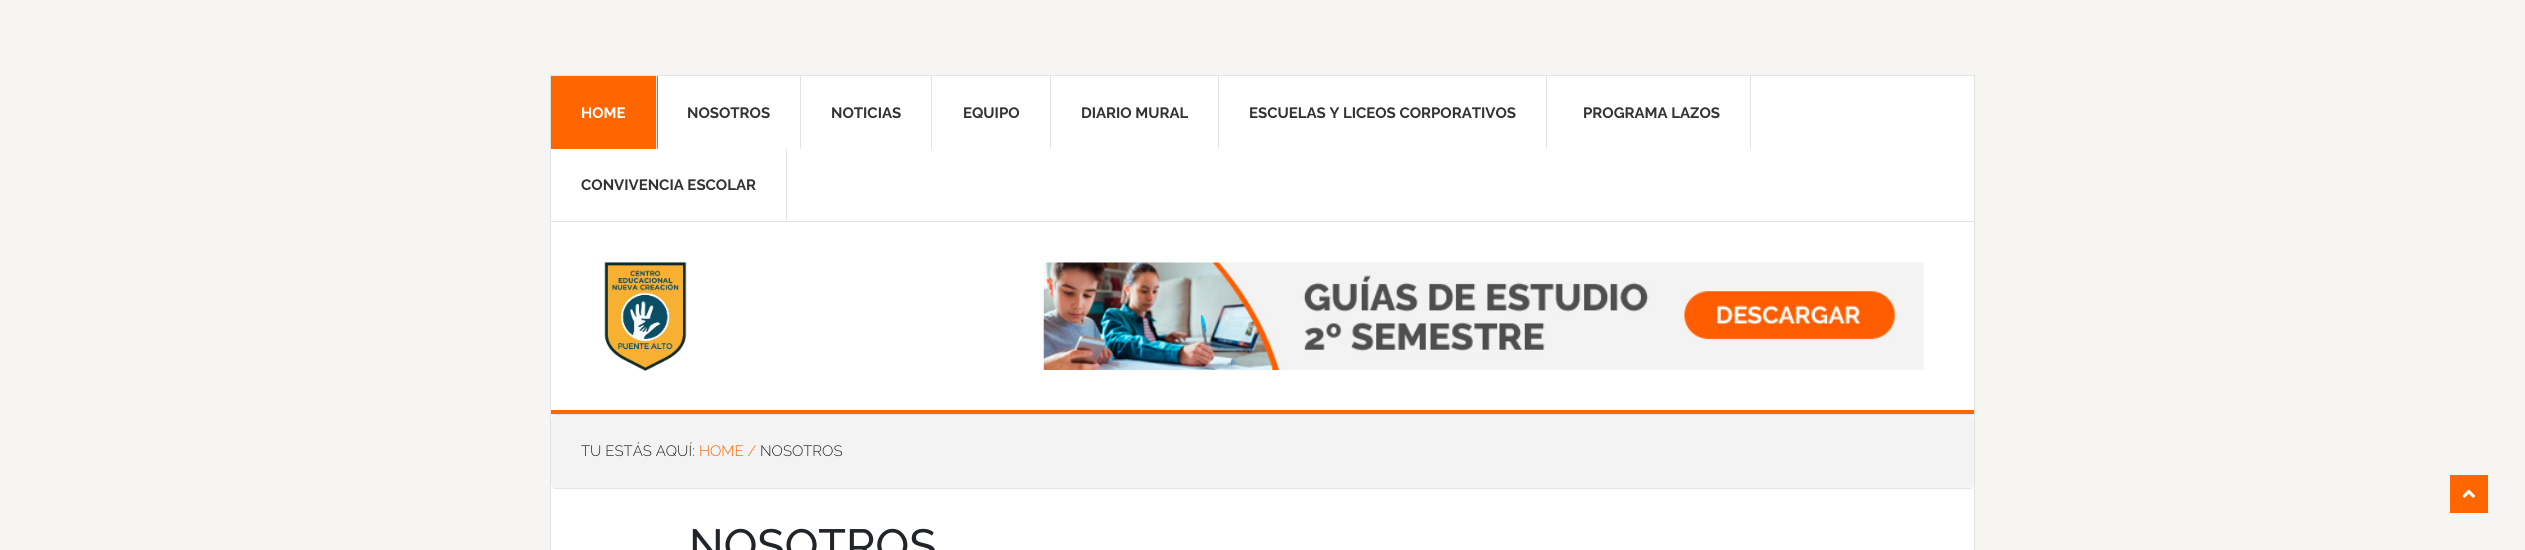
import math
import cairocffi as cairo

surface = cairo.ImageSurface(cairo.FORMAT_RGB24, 2525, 550)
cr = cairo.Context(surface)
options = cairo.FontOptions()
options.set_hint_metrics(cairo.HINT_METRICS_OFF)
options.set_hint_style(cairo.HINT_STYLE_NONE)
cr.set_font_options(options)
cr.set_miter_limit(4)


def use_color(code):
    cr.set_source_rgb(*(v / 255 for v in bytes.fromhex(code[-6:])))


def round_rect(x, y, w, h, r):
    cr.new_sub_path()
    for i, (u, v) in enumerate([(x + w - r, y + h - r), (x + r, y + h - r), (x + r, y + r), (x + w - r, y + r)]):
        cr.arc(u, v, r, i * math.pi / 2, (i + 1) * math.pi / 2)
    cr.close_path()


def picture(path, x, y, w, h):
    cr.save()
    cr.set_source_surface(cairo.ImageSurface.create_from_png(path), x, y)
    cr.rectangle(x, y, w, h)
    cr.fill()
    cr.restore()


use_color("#f6f5f2")
cr.paint()
use_color("#ffffff")
cr.rectangle(550.5, 75.5, 1424, 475)
cr.fill_preserve()
use_color("#e3e3e3")
cr.set_line_width(1)
cr.stroke()
cr.rectangle(551, 221, 1423, 1)
cr.fill()
use_color("#ff6600")
cr.rectangle(551, 76, 107, 73)
cr.fill()
use_color("#e3e3e3")
cr.rectangle(656, 76, 1, 73)
cr.fill()
cr.select_font_face("Raleway", cairo.FONT_SLANT_NORMAL, cairo.FONT_WEIGHT_BOLD)
cr.set_font_size(15)
use_color("#ffffff")
cr.move_to(581, 118)
cr.show_text("HOME")
use_color("#e3e3e3")
cr.rectangle(800, 76, 1, 73)
cr.fill()
use_color("#333333")
cr.move_to(687, 118)
cr.show_text("NOSOTROS")
use_color("#e3e3e3")
cr.rectangle(931, 76, 1, 73)
cr.fill()
use_color("#333333")
cr.move_to(831, 118)
cr.show_text("NOTICIAS")
use_color("#e3e3e3")
cr.rectangle(1050, 76, 1, 73)
cr.fill()
use_color("#333333")
cr.move_to(963, 118)
cr.show_text("EQUIPO")
use_color("#e3e3e3")
cr.rectangle(1218, 76, 1, 73)
cr.fill()
use_color("#333333")
cr.move_to(1081, 118)
cr.show_text("DIARIO MURAL")
use_color("#e3e3e3")
cr.rectangle(1546, 76, 1, 73)
cr.fill()
use_color("#333333")
cr.move_to(1249, 118)
cr.show_text("ESCUELAS Y LICEOS CORPORATIVOS")
use_color("#e3e3e3")
cr.rectangle(1750, 76, 1, 73)
cr.fill()
use_color("#333333")
cr.move_to(1583, 118)
cr.show_text("PROGRAMA LAZOS")
use_color("#e3e3e3")
cr.rectangle(786, 149, 1, 72)
cr.fill()
use_color("#333333")
cr.move_to(581, 190)
cr.show_text("CONVIVENCIA ESCOLAR")
picture("img1.png", 604, 262, 83, 109)
picture("img2.png", 1043, 262, 881, 108)
use_color("#ff6600")
cr.rectangle(551, 410, 1423, 4)
cr.fill()
use_color("#e3e3e3")
cr.rectangle(551, 414, 1423, 1)
cr.fill()
use_color("#f3f3f3")
round_rect(551, 415, 1423, 74, 5)
cr.fill()
use_color("#e3e3e3")
cr.rectangle(554, 488, 1417, 1)
cr.fill()
cr.select_font_face("Raleway Light")
use_color("#212529")
cr.move_to(581, 456)
cr.show_text("TU ESTÁS AQUÍ:")
use_color("#ff6600")
cr.move_to(699, 456)
cr.show_text("HOME /")
use_color("#212529")
cr.move_to(760, 456)
cr.show_text("NOSOTROS")
cr.select_font_face("Raleway Medium")
cr.set_font_size(45)
cr.move_to(689, 561)
cr.show_text("NOSOTROS")
use_color("#ff6600")
cr.rectangle(2450, 475, 38, 38)
cr.fill()
picture("img3.png", 2462, 489, 13, 9)
surface.write_to_png("result.png")
